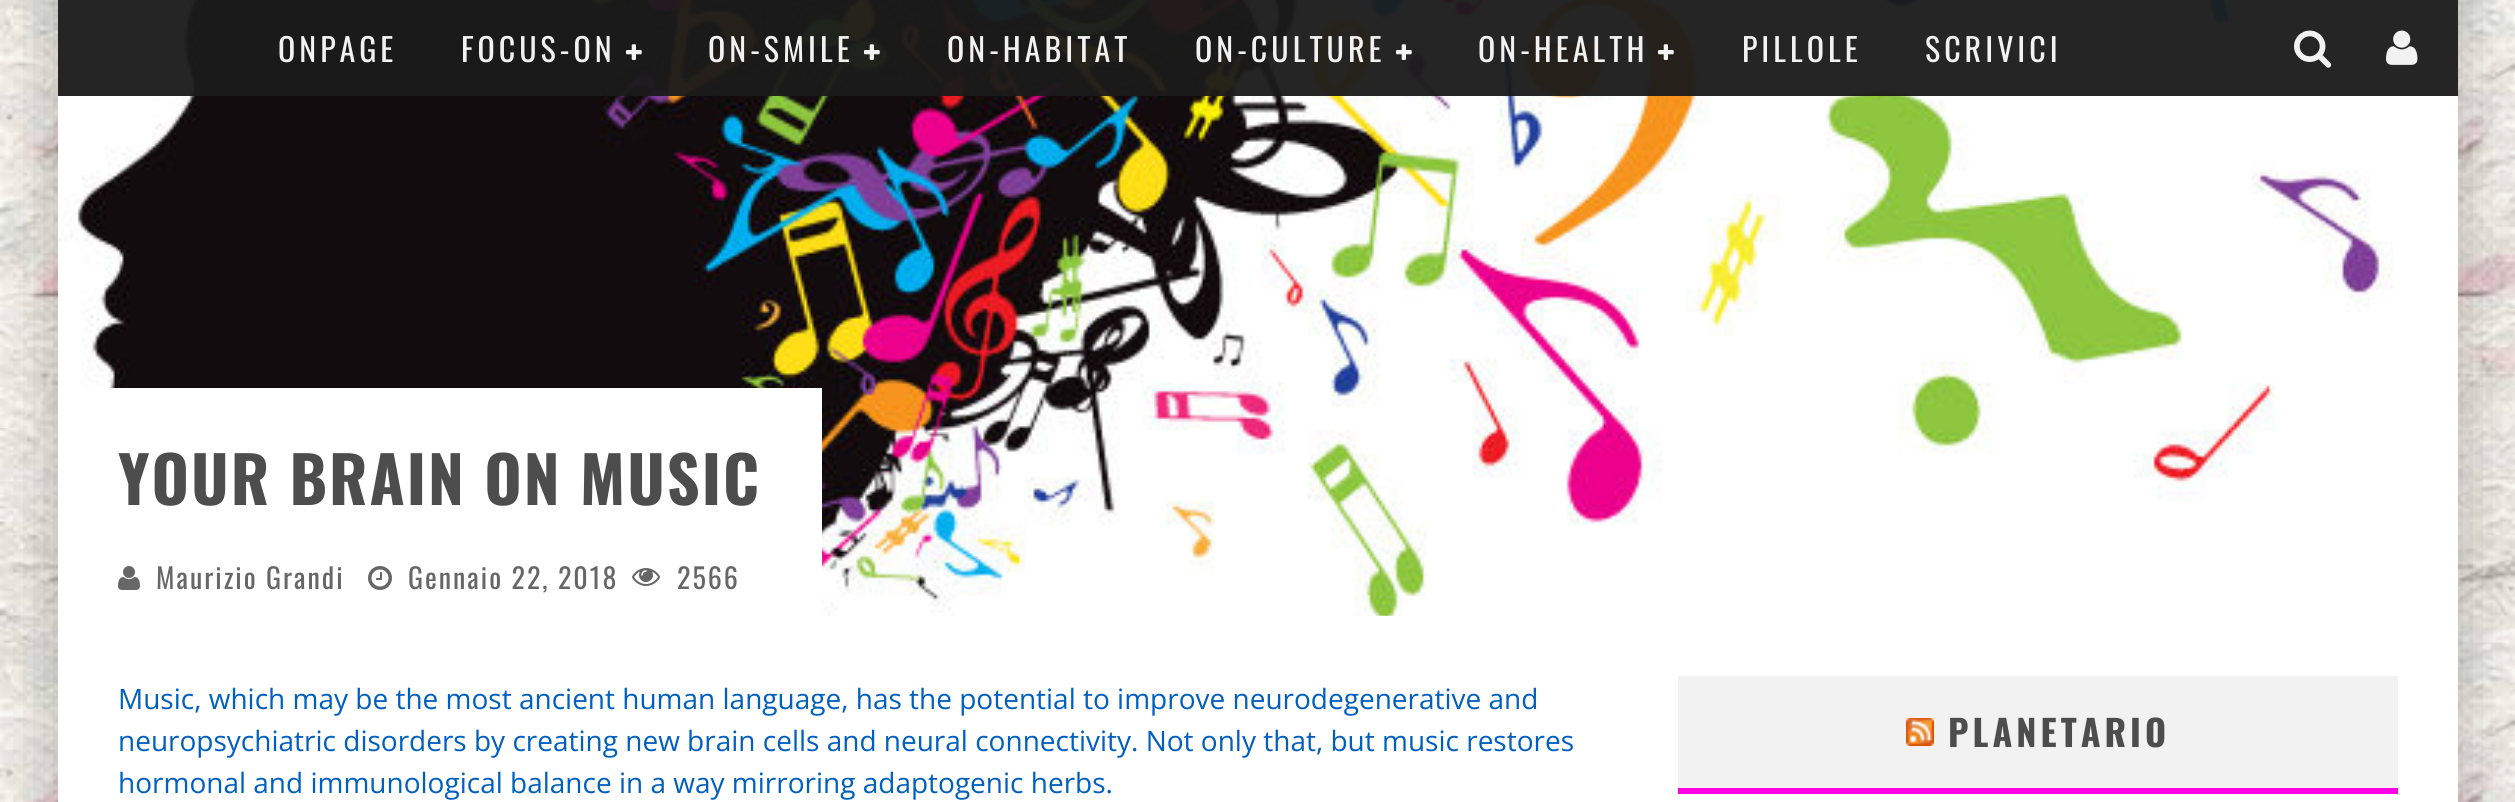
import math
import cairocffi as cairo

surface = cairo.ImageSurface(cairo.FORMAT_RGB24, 2515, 802)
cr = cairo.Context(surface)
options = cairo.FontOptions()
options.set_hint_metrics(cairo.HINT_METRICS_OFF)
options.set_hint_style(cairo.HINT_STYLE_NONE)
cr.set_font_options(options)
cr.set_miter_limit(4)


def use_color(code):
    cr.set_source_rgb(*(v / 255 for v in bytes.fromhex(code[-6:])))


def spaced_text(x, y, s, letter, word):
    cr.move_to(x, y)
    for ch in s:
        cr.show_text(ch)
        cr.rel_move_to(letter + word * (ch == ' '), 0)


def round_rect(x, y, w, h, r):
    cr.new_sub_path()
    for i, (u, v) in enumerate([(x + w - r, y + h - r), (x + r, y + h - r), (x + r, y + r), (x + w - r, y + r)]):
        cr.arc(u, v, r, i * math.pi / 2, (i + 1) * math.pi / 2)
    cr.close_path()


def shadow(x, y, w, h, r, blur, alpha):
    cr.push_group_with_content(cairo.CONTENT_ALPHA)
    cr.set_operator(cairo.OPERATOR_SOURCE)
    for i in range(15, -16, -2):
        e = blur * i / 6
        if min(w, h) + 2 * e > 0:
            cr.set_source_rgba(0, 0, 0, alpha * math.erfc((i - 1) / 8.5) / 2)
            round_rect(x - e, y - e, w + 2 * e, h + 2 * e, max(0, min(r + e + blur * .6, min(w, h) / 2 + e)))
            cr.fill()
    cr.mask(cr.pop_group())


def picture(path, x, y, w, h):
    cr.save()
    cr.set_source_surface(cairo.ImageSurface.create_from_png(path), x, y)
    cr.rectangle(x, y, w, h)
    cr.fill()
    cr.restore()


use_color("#ffffff")
cr.paint()
picture("img1.png", 0, 0, 2515, 802)
use_color("#000000")
shadow(38, -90, 2400, 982, 0, 30, 0.15)
shadow(78, -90, 2400, 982, 0, 30, 0.15)
use_color("#ffffff")
cr.rectangle(2394, 0, 64, 616)
cr.fill()
picture("img8.png", 58, 0, 2336, 616)
cr.set_source_rgba(0.106, 0.106, 0.106, 0.95)
cr.rectangle(58, 0, 2400, 96)
cr.fill()
cr.select_font_face("Oswald")
cr.set_font_size(32)
use_color("#f2f2f2")
spaced_text(278, 62, "ONPAGE", 4, 0)
spaced_text(461, 62, "FOCUS-ON", 4, 0)
picture("img2.png", 626, 44, 16, 16)
spaced_text(708, 62, "ON-SMILE", 4, 0)
picture("img3.png", 864, 44, 16, 16)
spaced_text(947, 62, "ON-HABITAT", 4, 0)
spaced_text(1195, 62, "ON-CULTURE", 4, 0)
picture("img4.png", 1396, 44, 16, 16)
spaced_text(1478, 62, "ON-HEALTH", 4, 0)
picture("img5.png", 1658, 44, 16, 16)
spaced_text(1742, 62, "PILLOLE", 4, 0)
spaced_text(1925, 62, "SCRIVICI", 4, 0)
picture("img6.png", 2294, 30, 38, 38)
picture("img7.png", 2386, 30, 32, 35)
use_color("#ffffff")
cr.rectangle(81, 388, 741, 228)
cr.fill()
cr.select_font_face("Oswald", cairo.FONT_SLANT_NORMAL, cairo.FONT_WEIGHT_BOLD)
cr.set_font_size(64)
use_color("#4d4d4d")
spaced_text(118, 505, "YOUR BRAIN ON MUSIC", 2, 0)
picture("img9.png", 118, 566, 22, 24)
cr.select_font_face("Oswald")
cr.set_font_size(28)
use_color("#676767")
spaced_text(156, 589, "Maurizio Grandi", 2, 0)
picture("img10.png", 368, 566, 24, 24)
spaced_text(408, 589, "Gennaio 22, 2018", 2, 0)
picture("img11.png", 632, 568, 28, 18)
spaced_text(677, 589, "2566", 2, 0)
use_color("#ffffff")
cr.rectangle(58, 616, 2400, 186)
cr.fill()
cr.select_font_face("Open Sans")
use_color("#005fbf")
cr.move_to(118, 709)
cr.show_text("Music, which may be the most ancient human language, has the potential to improve neurodegenerative and")
cr.move_to(118, 751)
cr.show_text("neuropsychiatric disorders by creating new brain cells and neural connectivity. Not only that, but music restores")
cr.move_to(118, 793)
cr.show_text("hormonal and immunological balance in a way mirroring adaptogenic herbs.")
use_color("#f2f2f2")
cr.rectangle(1678, 676, 720, 112)
cr.fill()
use_color("#ff00e5")
cr.rectangle(1678, 788, 720, 6)
cr.fill()
picture("img12.png", 1906, 718, 28, 28)
cr.select_font_face("Oswald", cairo.FONT_SLANT_NORMAL, cairo.FONT_WEIGHT_BOLD)
cr.set_font_size(36)
use_color("#4d4d4d")
spaced_text(1948, 747, "PLANETARIO", 4, 0)
surface.write_to_png("result.png")
